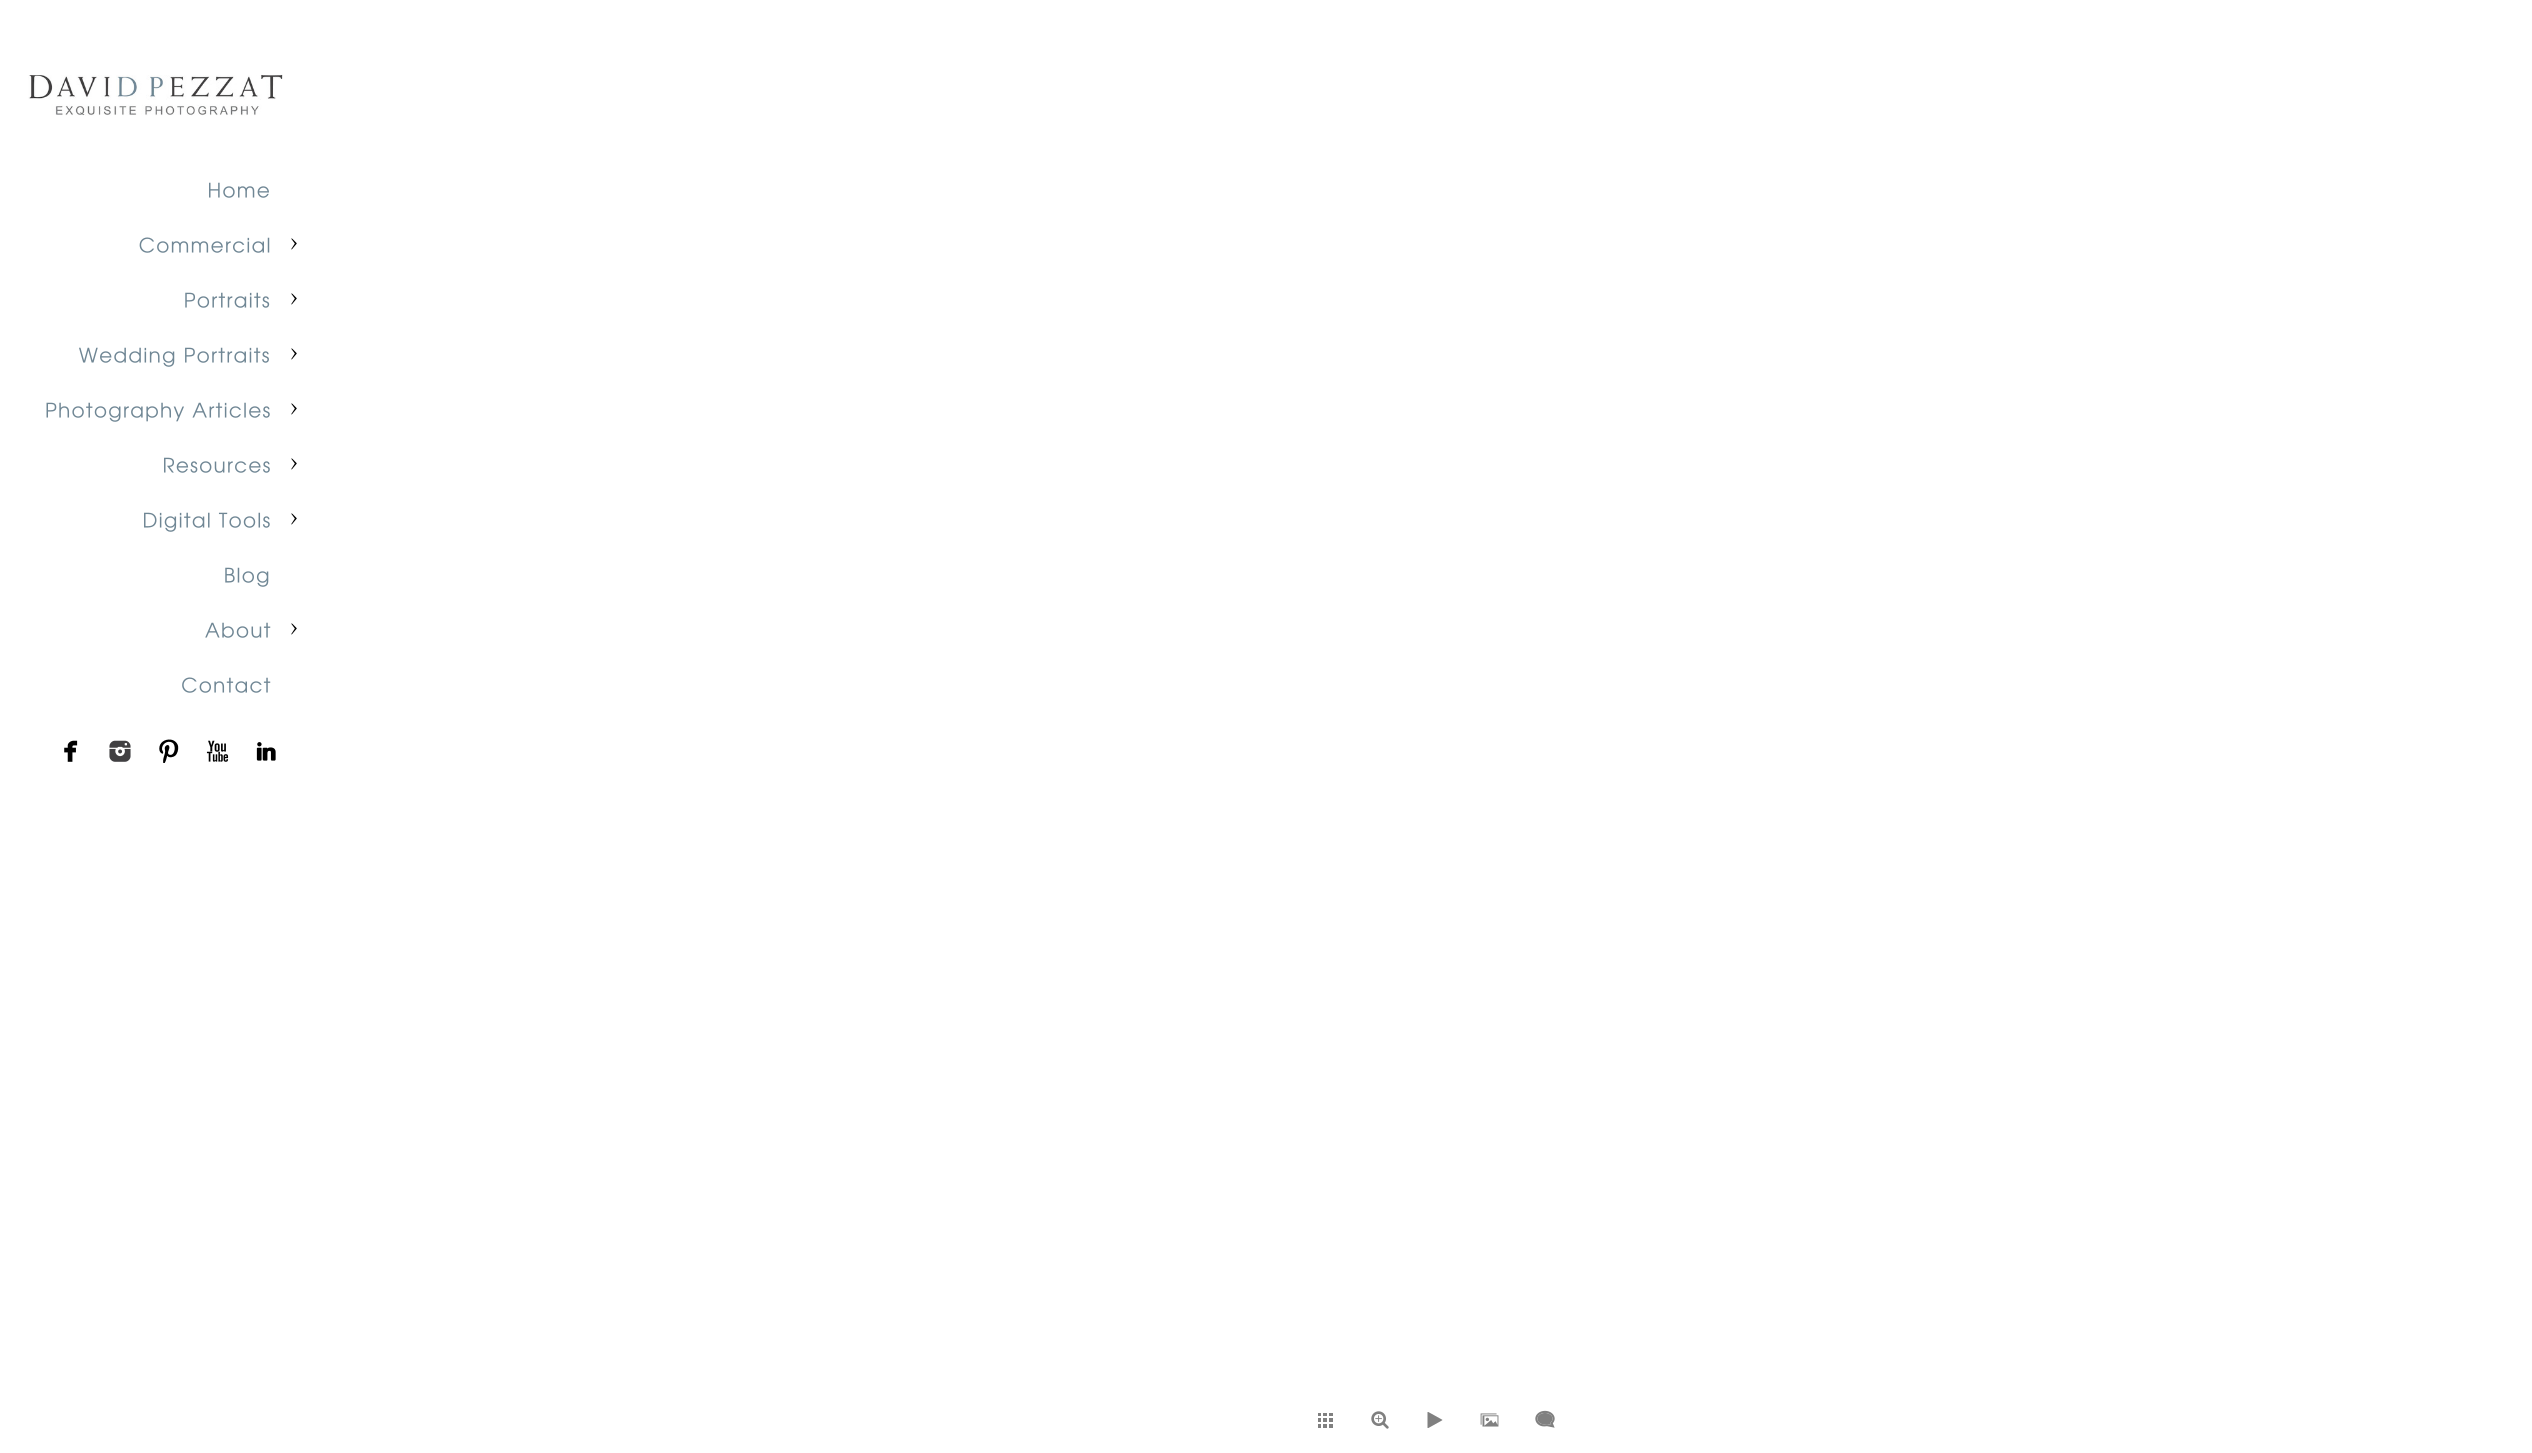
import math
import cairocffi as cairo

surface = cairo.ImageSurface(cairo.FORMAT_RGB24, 2532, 1453)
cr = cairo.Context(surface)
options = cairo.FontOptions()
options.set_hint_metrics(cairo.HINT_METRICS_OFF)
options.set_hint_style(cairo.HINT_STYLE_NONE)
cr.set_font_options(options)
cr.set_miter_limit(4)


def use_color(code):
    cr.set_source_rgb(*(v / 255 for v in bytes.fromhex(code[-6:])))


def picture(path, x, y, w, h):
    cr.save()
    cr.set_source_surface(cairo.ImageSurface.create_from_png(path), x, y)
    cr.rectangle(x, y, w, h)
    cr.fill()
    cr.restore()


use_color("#ffffff")
cr.paint()
picture("img1.png", 28, 74, 255, 42)
picture("img2.png", 209, 182, 60, 16)
picture("img3.png", 139, 237, 131, 16)
picture("img4.png", 291, 238, 6, 12)
picture("img5.png", 185, 292, 85, 16)
picture("img4.png", 291, 293, 6, 12)
picture("img6.png", 79, 347, 190, 20)
picture("img4.png", 291, 348, 6, 12)
picture("img7.png", 46, 402, 224, 20)
picture("img4.png", 291, 403, 6, 12)
picture("img8.png", 164, 457, 106, 16)
picture("img4.png", 291, 458, 6, 12)
picture("img9.png", 144, 512, 126, 20)
picture("img4.png", 291, 513, 6, 12)
picture("img10.png", 225, 567, 44, 20)
picture("img11.png", 205, 622, 66, 16)
picture("img4.png", 291, 623, 6, 12)
picture("img12.png", 182, 677, 89, 16)
picture("img13.png", 64, 740, 14, 22)
picture("img14.png", 109, 740, 22, 22)
picture("img15.png", 159, 739, 20, 24)
picture("img16.png", 206, 740, 23, 22)
picture("img17.png", 256, 742, 20, 19)
picture("img18.png", 1318, 1413, 15, 15)
picture("img19.png", 1371, 1411, 18, 18)
picture("img20.png", 1427, 1412, 16, 16)
picture("img21.png", 1480, 1413, 19, 14)
picture("img22.png", 1535, 1410, 20, 18)
surface.write_to_png("result.png")
